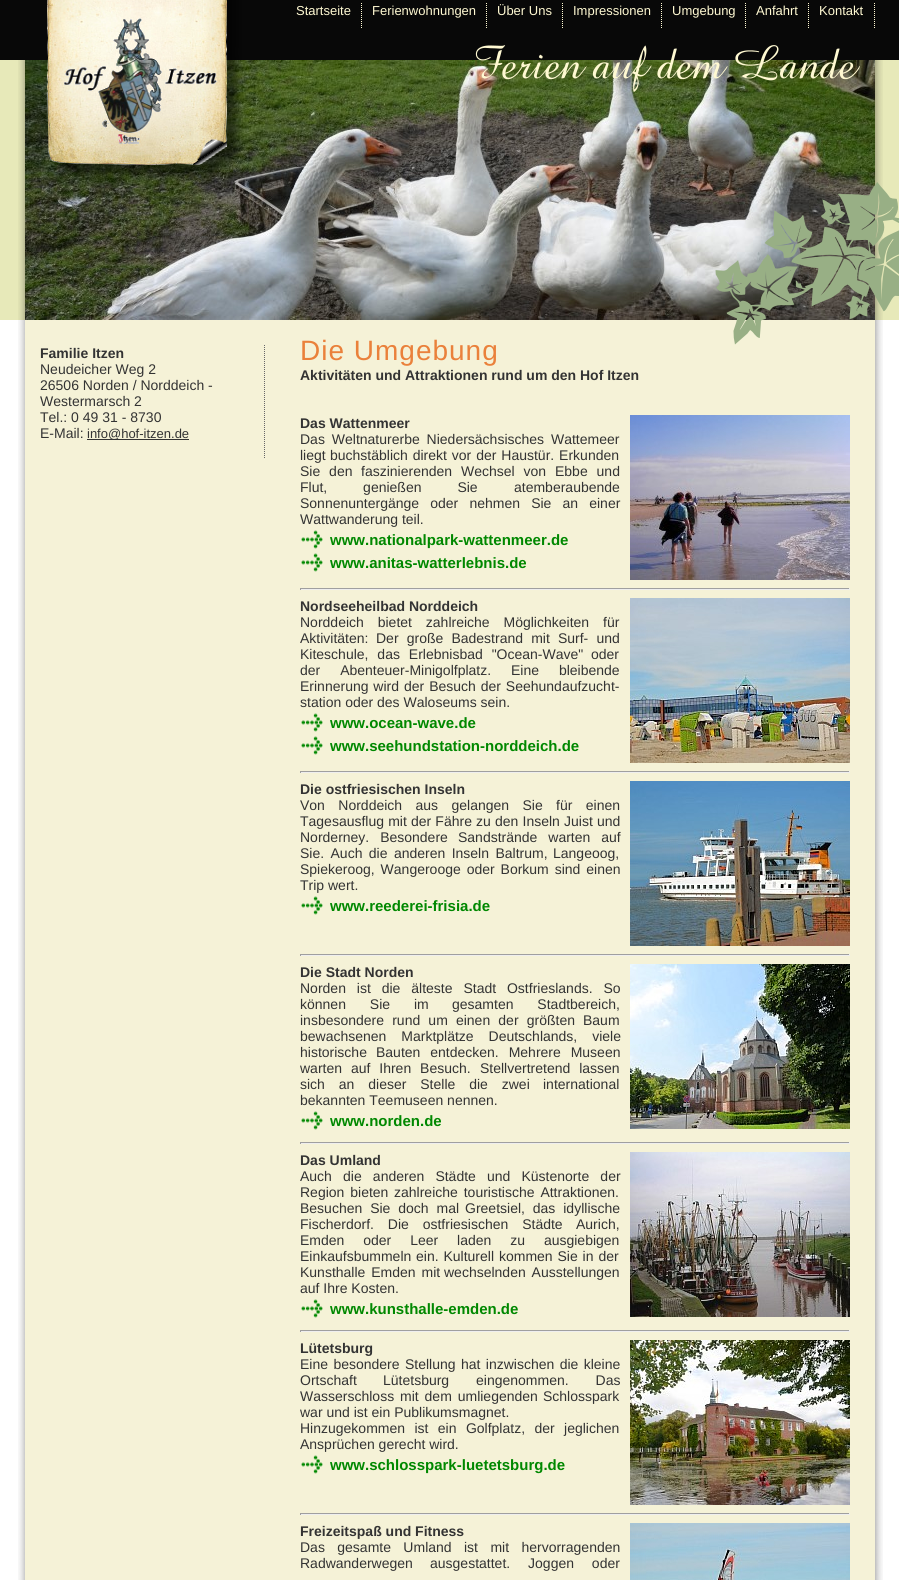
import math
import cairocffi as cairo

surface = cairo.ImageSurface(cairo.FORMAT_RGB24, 899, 1580)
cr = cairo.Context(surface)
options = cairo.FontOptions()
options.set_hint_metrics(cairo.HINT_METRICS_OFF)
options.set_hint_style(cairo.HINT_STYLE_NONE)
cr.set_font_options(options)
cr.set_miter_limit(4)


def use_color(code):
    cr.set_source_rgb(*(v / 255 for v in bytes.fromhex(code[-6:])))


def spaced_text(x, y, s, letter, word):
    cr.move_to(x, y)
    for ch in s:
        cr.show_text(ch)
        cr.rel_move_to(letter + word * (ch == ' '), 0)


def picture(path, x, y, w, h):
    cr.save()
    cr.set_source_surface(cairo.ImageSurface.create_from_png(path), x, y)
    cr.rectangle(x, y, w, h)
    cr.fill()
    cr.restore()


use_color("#ffffff")
cr.paint()
picture("img1.png", 0, 0, 899, 320)
picture("img4.png", 25, 60, 850, 260)
picture("img2.png", 47, 0, 196, 181)
cr.new_path()
cr.move_to(361.5, 3)
cr.line_to(361.5, 28)
use_color("#fff9d2")
cr.set_line_width(1)
cr.set_dash([1, 1])
cr.stroke()
cr.select_font_face("Liberation Sans")
cr.set_font_size(13)
cr.move_to(296, 15)
cr.show_text("Startseite")
cr.new_path()
cr.move_to(486.5, 3)
cr.line_to(486.5, 28)
cr.stroke()
cr.move_to(372, 15)
cr.show_text("Ferienwohnungen")
cr.new_path()
cr.move_to(562.5, 3)
cr.line_to(562.5, 28)
cr.stroke()
cr.move_to(497, 15)
cr.show_text("Über Uns")
cr.new_path()
cr.move_to(661.5, 3)
cr.line_to(661.5, 28)
cr.stroke()
cr.move_to(573, 15)
cr.show_text("Impressionen")
cr.new_path()
cr.move_to(745.5, 3)
cr.line_to(745.5, 28)
cr.stroke()
cr.move_to(672, 15)
cr.show_text("Umgebung")
cr.new_path()
cr.move_to(808.5, 3)
cr.line_to(808.5, 28)
cr.stroke()
cr.move_to(756, 15)
cr.show_text("Anfahrt")
cr.new_path()
cr.move_to(874.5, 3)
cr.line_to(874.5, 28)
cr.stroke()
cr.move_to(819, 15)
cr.show_text("Kontakt")
picture("img3.png", 18, 60, 7, 260)
picture("img5.png", 875, 60, 8, 260)
picture("img6.png", 18, 320, 7, 1260)
use_color("#f5f2d7")
cr.rectangle(25, 320, 850, 1260)
cr.fill()
cr.new_path()
cr.move_to(264.5, 345)
cr.line_to(264.5, 458)
use_color("#666666")
cr.stroke()
cr.select_font_face("Liberation Sans", cairo.FONT_SLANT_NORMAL, cairo.FONT_WEIGHT_BOLD)
cr.set_font_size(14)
use_color("#333333")
cr.move_to(40, 358)
cr.show_text("Familie Itzen")
cr.select_font_face("Liberation Sans")
cr.move_to(40, 374)
cr.show_text("Neudeicher Weg 2")
cr.move_to(40, 390)
cr.show_text("26506 Norden / Norddeich -")
cr.move_to(40, 406)
cr.show_text("Westermarsch 2")
cr.move_to(40, 422)
cr.show_text("Tel.: 0 49 31 - 8730")
cr.move_to(40, 438)
cr.show_text("E-Mail:")
cr.rectangle(87, 439, 102, 1)
cr.fill()
cr.set_font_size(13)
cr.move_to(87, 438)
cr.show_text("info@hof-itzen.de")
cr.set_font_size(28)
use_color("#ea813b")
spaced_text(300, 360, "Die Umgebung", 1, 0)
cr.select_font_face("Liberation Sans", cairo.FONT_SLANT_NORMAL, cairo.FONT_WEIGHT_BOLD)
cr.set_font_size(14)
use_color("#333333")
cr.move_to(300, 380)
cr.show_text("Aktivitäten und Attraktionen rund um den Hof Itzen")
cr.move_to(300, 428)
cr.show_text("Das Wattenmeer")
cr.select_font_face("Liberation Sans")
spaced_text(300, 444, "Das Weltnaturerbe Niedersächsisches Wattemeer", 0, 3)
cr.move_to(300, 460)
cr.show_text("liegt")
spaced_text(330, 460, "buchstäblich direkt vor der Haustür. Erkunden", 0, 1)
spaced_text(300, 476, "Sie den", 0, 5)
spaced_text(361, 476, "faszinierenden Wechsel von Ebbe und", 0, 5)
spaced_text(300, 492, "Flut, genießen Sie", 0, 32)
cr.move_to(514, 492)
cr.show_text("atemberaubende")
spaced_text(300, 508, "Sonnenuntergänge oder nehmen Sie an einer", 0, 7.25)
cr.move_to(300, 524)
cr.show_text("Wattwanderung teil.")
picture("img7.png", 301, 530, 22, 19)
cr.select_font_face("Liberation Sans", cairo.FONT_SLANT_NORMAL, cairo.FONT_WEIGHT_BOLD)
cr.set_font_size(15)
use_color("#008800")
cr.move_to(330, 545)
cr.show_text("www.nationalpark-wattenmeer.de")
picture("img7.png", 301, 553, 22, 19)
cr.move_to(330, 568)
cr.show_text("www.anitas-watterlebnis.de")
picture("img8.png", 630, 415, 220, 165)
use_color("#9f9f9f")
cr.rectangle(300, 588, 550, 1)
cr.fill()
use_color("#eeeeee")
cr.rectangle(849, 588, 1, 2)
cr.fill()
cr.rectangle(300, 589, 550, 1)
cr.fill()
use_color("#9f9f9f")
cr.rectangle(300, 588, 1, 2)
cr.fill()
cr.set_font_size(14)
use_color("#333333")
cr.move_to(300, 611)
cr.show_text("Nordseeheilbad Norddeich")
cr.select_font_face("Liberation Sans")
spaced_text(300, 627, "Norddeich bietet zahlreiche Möglichkeiten für", 0, 10)
cr.move_to(300, 643)
cr.show_text("Aktivitäten:")
spaced_text(376, 643, "Der große Badestrand mit Surf- und", 0, 4.25)
spaced_text(300, 659, "Kiteschule, das Erlebnisbad \"Ocean-Wave\"", 0, 5)
cr.move_to(591, 659)
cr.show_text("oder")
spaced_text(300, 675, "der Abenteuer-Minigolfplatz. Eine bleibende", 0, 16)
spaced_text(300, 691, "Erinnerung wird", 0, 1)
spaced_text(404, 691, "der Besuch der Seehundaufzucht-", 0, 1)
cr.move_to(300, 707)
cr.show_text("station oder des Waloseums sein.")
picture("img7.png", 301, 713, 22, 19)
cr.select_font_face("Liberation Sans", cairo.FONT_SLANT_NORMAL, cairo.FONT_WEIGHT_BOLD)
cr.set_font_size(15)
use_color("#008800")
cr.move_to(330, 728)
cr.show_text("www.ocean-wave.de")
picture("img7.png", 301, 736, 22, 19)
cr.move_to(330, 751)
cr.show_text("www.seehundstation-norddeich.de")
picture("img9.png", 630, 598, 220, 165)
use_color("#9f9f9f")
cr.rectangle(300, 771, 550, 1)
cr.fill()
use_color("#eeeeee")
cr.rectangle(849, 771, 1, 2)
cr.fill()
cr.rectangle(300, 772, 550, 1)
cr.fill()
use_color("#9f9f9f")
cr.rectangle(300, 771, 1, 2)
cr.fill()
cr.set_font_size(14)
use_color("#333333")
cr.move_to(300, 794)
cr.show_text("Die ostfriesischen Inseln")
cr.select_font_face("Liberation Sans")
spaced_text(300, 810, "Von Norddeich aus gelangen Sie für einen", 0, 9.5)
spaced_text(300, 826, "Tagesausflug mit der Fähre zu den Inseln Juist und", 0, 0.25)
spaced_text(300, 842, "Norderney. Besondere", 0, 7)
spaced_text(458, 842, "Sandstrände warten auf", 0, 7)
spaced_text(300, 858, "Sie. Auch die anderen Inseln Baltrum,", 0, 2.5)
cr.move_to(553, 858)
cr.show_text("Langeoog,")
spaced_text(300, 874, "Spiekeroog, Wangerooge oder Borkum sind einen", 0, 2)
cr.move_to(300, 890)
cr.show_text("Trip wert.")
picture("img7.png", 301, 896, 22, 19)
cr.select_font_face("Liberation Sans", cairo.FONT_SLANT_NORMAL, cairo.FONT_WEIGHT_BOLD)
cr.set_font_size(15)
use_color("#008800")
cr.move_to(330, 911)
cr.show_text("www.reederei-frisia.de")
picture("img10.png", 630, 781, 220, 165)
use_color("#9f9f9f")
cr.rectangle(300, 954, 550, 1)
cr.fill()
use_color("#eeeeee")
cr.rectangle(849, 954, 1, 2)
cr.fill()
cr.rectangle(300, 955, 550, 1)
cr.fill()
use_color("#9f9f9f")
cr.rectangle(300, 954, 1, 2)
cr.fill()
cr.set_font_size(14)
use_color("#333333")
cr.move_to(300, 977)
cr.show_text("Die Stadt Norden")
cr.select_font_face("Liberation Sans")
spaced_text(300, 993, "Norden ist die älteste Stadt Ostfrieslands. So", 0, 7)
spaced_text(300, 1009, "können Sie im", 0, 20)
spaced_text(452, 1009, "gesamten Stadtbereich,", 0, 20)
spaced_text(300, 1025, "insbesondere rund um einen der größten", 0, 4.25)
cr.move_to(583, 1025)
cr.show_text("Baum")
spaced_text(300, 1041, "bewachsenen Marktplätze Deutschlands, viele", 0, 11)
cr.move_to(300, 1057)
cr.show_text("historische")
spaced_text(376, 1057, "Bauten entdecken. Mehrere Museen", 0, 6)
spaced_text(300, 1073, "warten auf Ihren Besuch.", 0, 5)
spaced_text(480, 1073, "Stellvertretend lassen", 0, 5)
spaced_text(300, 1089, "sich an dieser Stelle die zwei", 0, 10)
cr.move_to(543, 1089)
cr.show_text("international")
cr.move_to(300, 1105)
cr.show_text("bekannten Teemuseen nennen.")
picture("img7.png", 301, 1111, 22, 19)
cr.select_font_face("Liberation Sans", cairo.FONT_SLANT_NORMAL, cairo.FONT_WEIGHT_BOLD)
cr.set_font_size(15)
use_color("#008800")
cr.move_to(330, 1126)
cr.show_text("www.norden.de")
picture("img11.png", 630, 964, 220, 165)
use_color("#9f9f9f")
cr.rectangle(300, 1142, 550, 1)
cr.fill()
use_color("#eeeeee")
cr.rectangle(849, 1142, 1, 2)
cr.fill()
cr.rectangle(300, 1143, 550, 1)
cr.fill()
use_color("#9f9f9f")
cr.rectangle(300, 1142, 1, 2)
cr.fill()
cr.set_font_size(14)
use_color("#333333")
cr.move_to(300, 1165)
cr.show_text("Das Umland")
cr.select_font_face("Liberation Sans")
spaced_text(300, 1181, "Auch die anderen Städte und Küstenorte der", 0, 7.25)
spaced_text(300, 1197, "Region bieten", 0, 2)
spaced_text(394, 1197, "zahlreiche touristische Attraktionen.", 0, 2)
spaced_text(300, 1213, "Besuchen Sie doch mal", 0, 4)
spaced_text(465, 1213, "Greetsiel, das idyllische", 0, 4)
spaced_text(300, 1229, "Fischerdorf. Die ostfriesischen Städte", 0, 10)
cr.move_to(576, 1229)
cr.show_text("Aurich,")
spaced_text(300, 1245, "Emden oder Leer laden zu ausgiebigen", 0, 15)
cr.move_to(300, 1261)
cr.show_text("Einkaufsbummeln")
spaced_text(416, 1261, "ein. Kulturell kommen Sie in der", 0, 1)
spaced_text(300, 1277, "Kunsthalle Emden mit", 0, 2)
spaced_text(444, 1277, "wechselnden Ausstellungen", 0, 2)
cr.move_to(300, 1293)
cr.show_text("auf Ihre Kosten.")
picture("img7.png", 301, 1299, 22, 19)
cr.select_font_face("Liberation Sans", cairo.FONT_SLANT_NORMAL, cairo.FONT_WEIGHT_BOLD)
cr.set_font_size(15)
use_color("#008800")
cr.move_to(330, 1314)
cr.show_text("www.kunsthalle-emden.de")
picture("img12.png", 630, 1152, 220, 165)
use_color("#9f9f9f")
cr.rectangle(300, 1330, 550, 1)
cr.fill()
use_color("#eeeeee")
cr.rectangle(849, 1330, 1, 2)
cr.fill()
cr.rectangle(300, 1331, 550, 1)
cr.fill()
use_color("#9f9f9f")
cr.rectangle(300, 1330, 1, 2)
cr.fill()
cr.set_font_size(14)
use_color("#333333")
cr.move_to(300, 1353)
cr.show_text("Lütetsburg")
cr.select_font_face("Liberation Sans")
spaced_text(300, 1369, "Eine besondere Stellung hat inzwischen die kleine", 0, 1.5)
cr.move_to(300, 1385)
cr.show_text("Ortschaft")
spaced_text(383, 1385, "Lütetsburg eingenommen. Das", 0, 23)
spaced_text(300, 1401, "Wasserschloss mit dem umliegenden", 0, 2)
cr.move_to(543, 1401)
cr.show_text("Schlosspark")
cr.move_to(300, 1417)
cr.show_text("war und ist ein Publikumsmagnet.")
spaced_text(300, 1433, "Hinzugekommen ist ein Golfplatz, der jeglichen", 0, 5.5)
cr.move_to(300, 1449)
cr.show_text("Ansprüchen gerecht wird.")
picture("img7.png", 301, 1455, 22, 19)
cr.select_font_face("Liberation Sans", cairo.FONT_SLANT_NORMAL, cairo.FONT_WEIGHT_BOLD)
cr.set_font_size(15)
use_color("#008800")
cr.move_to(330, 1470)
cr.show_text("www.schlosspark-luetetsburg.de")
picture("img13.png", 630, 1340, 220, 165)
use_color("#9f9f9f")
cr.rectangle(300, 1513, 550, 1)
cr.fill()
use_color("#eeeeee")
cr.rectangle(849, 1513, 1, 2)
cr.fill()
cr.rectangle(300, 1514, 550, 1)
cr.fill()
use_color("#9f9f9f")
cr.rectangle(300, 1513, 1, 2)
cr.fill()
cr.set_font_size(14)
use_color("#333333")
cr.move_to(300, 1536)
cr.show_text("Freizeitspaß und Fitness")
cr.select_font_face("Liberation Sans")
spaced_text(300, 1552, "Das gesamte Umland ist mit hervorragenden", 0, 8.5)
cr.move_to(300, 1568)
cr.show_text("Radwanderwegen")
spaced_text(430, 1568, "ausgestattet. Joggen oder", 0, 14)
picture("img14.png", 630, 1523, 220, 57)
picture("img15.png", 875, 320, 8, 1260)
picture("img16.png", 475, 45, 385, 47)
picture("img17.png", 715, 182, 184, 163)
surface.write_to_png("result.png")
